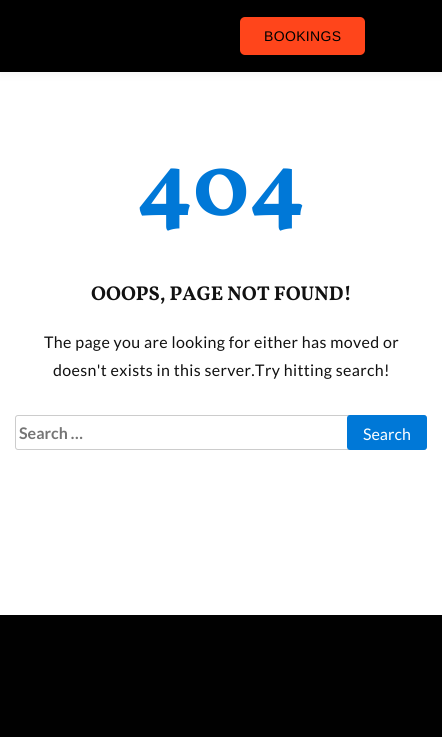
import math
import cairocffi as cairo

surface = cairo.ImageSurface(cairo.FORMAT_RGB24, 442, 737)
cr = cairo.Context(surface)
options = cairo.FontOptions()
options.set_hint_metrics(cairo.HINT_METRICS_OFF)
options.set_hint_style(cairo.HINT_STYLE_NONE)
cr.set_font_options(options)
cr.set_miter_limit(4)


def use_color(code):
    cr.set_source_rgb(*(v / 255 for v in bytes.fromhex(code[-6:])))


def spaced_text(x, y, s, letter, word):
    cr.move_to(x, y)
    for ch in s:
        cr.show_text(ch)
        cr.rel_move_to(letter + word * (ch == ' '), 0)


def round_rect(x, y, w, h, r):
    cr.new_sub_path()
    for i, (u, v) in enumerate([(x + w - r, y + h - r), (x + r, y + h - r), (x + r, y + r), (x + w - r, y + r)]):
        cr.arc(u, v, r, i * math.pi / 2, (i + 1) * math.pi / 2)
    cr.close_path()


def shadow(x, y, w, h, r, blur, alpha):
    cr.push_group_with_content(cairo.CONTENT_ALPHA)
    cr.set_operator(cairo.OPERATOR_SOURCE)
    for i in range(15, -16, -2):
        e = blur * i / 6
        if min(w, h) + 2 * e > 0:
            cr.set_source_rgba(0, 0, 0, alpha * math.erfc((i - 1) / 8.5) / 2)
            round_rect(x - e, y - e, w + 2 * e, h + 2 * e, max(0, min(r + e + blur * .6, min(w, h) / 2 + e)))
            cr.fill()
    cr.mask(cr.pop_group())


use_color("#ffffff")
cr.paint()
use_color("#e0e0e0")
shadow(0, 0, 442, 72, 0, 5, 0.5)
use_color("#000000")
cr.rectangle(0, 0, 442, 72)
cr.fill()
use_color("#ff451b")
round_rect(240, 17, 125, 38, 5)
cr.fill()
cr.select_font_face("Liberation Sans")
cr.set_font_size(14)
use_color("#000000")
spaced_text(264, 41, "BOOKINGS", 0.35, 0)
cr.select_font_face("Vollkorn", cairo.FONT_SLANT_NORMAL, cairo.FONT_WEIGHT_BOLD)
cr.set_font_size(92)
use_color("#0078d7")
cr.move_to(137, 215)
cr.show_text("404")
cr.set_font_size(20)
use_color("#111111")
cr.move_to(91, 300)
cr.show_text("OOOPS, PAGE NOT FOUND!")
cr.select_font_face("Lato")
cr.set_font_size(16)
spaced_text(44, 348, "The page you are looking for either has moved or", 0.35, 0)
spaced_text(53, 376, "doesn't exists in this server.Try hitting search!", 0.35, 0)
round_rect(15.5, 415.5, 411, 34, 2.5)
use_color("#cccccc")
cr.set_line_width(1)
cr.stroke()
cr.select_font_face("Lato", cairo.FONT_SLANT_NORMAL, cairo.FONT_WEIGHT_BOLD)
use_color("#757575")
cr.move_to(19, 439)
cr.show_text("Search …")
use_color("#0078d7")
round_rect(347, 415, 80, 35, 3)
cr.fill()
cr.select_font_face("Lato")
use_color("#ffffff")
cr.move_to(363, 440)
cr.show_text("Search")
use_color("#010101")
cr.rectangle(0, 615, 442, 122)
cr.fill()
surface.write_to_png("result.png")
